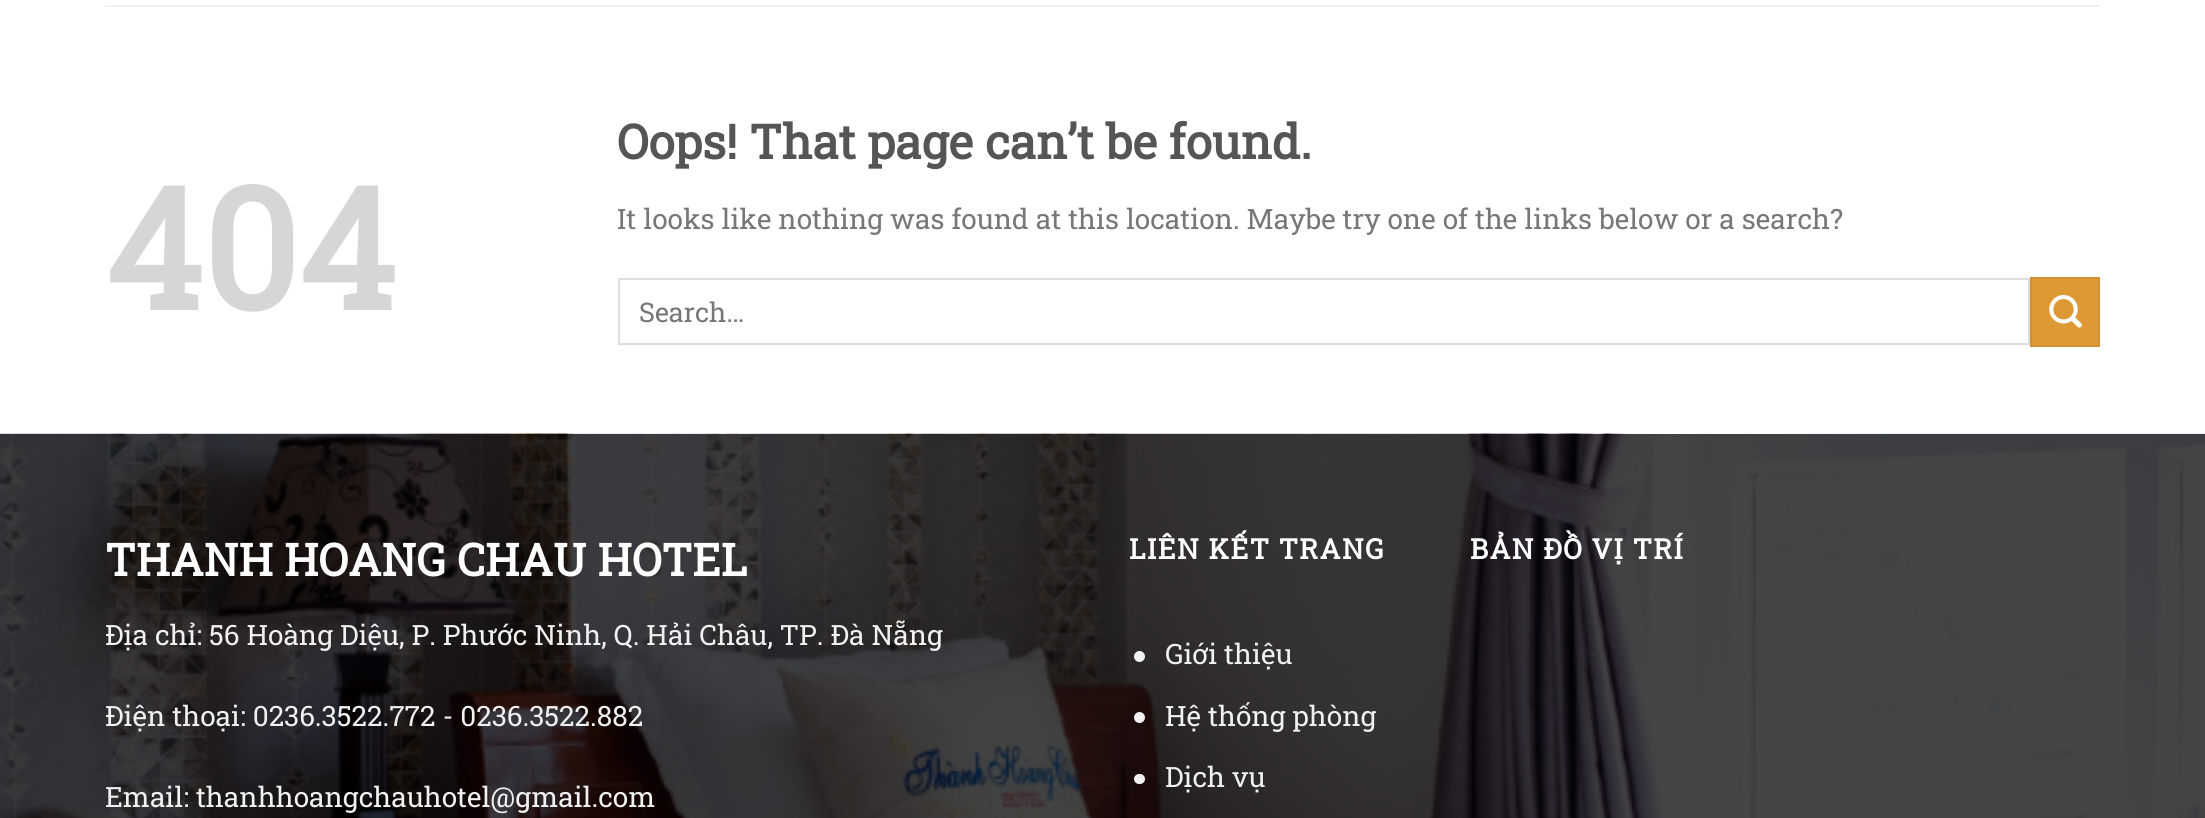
import math
import cairocffi as cairo

surface = cairo.ImageSurface(cairo.FORMAT_RGB24, 2205, 818)
cr = cairo.Context(surface)
options = cairo.FontOptions()
options.set_hint_metrics(cairo.HINT_METRICS_OFF)
options.set_hint_style(cairo.HINT_STYLE_NONE)
cr.set_font_options(options)
cr.set_miter_limit(4)


def use_color(code):
    cr.set_source_rgb(*(v / 255 for v in bytes.fromhex(code[-6:])))


def spaced_text(x, y, s, letter, word):
    cr.move_to(x, y)
    for ch in s:
        cr.show_text(ch)
        cr.rel_move_to(letter + word * (ch == ' '), 0)


def round_rect(x, y, w, h, r):
    cr.new_sub_path()
    for i, (u, v) in enumerate([(x + w - r, y + h - r), (x + r, y + h - r), (x + r, y + r), (x + w - r, y + r)]):
        cr.arc(u, v, r, i * math.pi / 2, (i + 1) * math.pi / 2)
    cr.close_path()


def picture(path, x, y, w, h):
    cr.save()
    cr.set_source_surface(cairo.ImageSurface.create_from_png(path), x, y)
    cr.rectangle(x, y, w, h)
    cr.fill()
    cr.restore()


use_color("#ffffff")
cr.paint()
use_color("#f1f1f1")
cr.rectangle(105, 5, 1995, 2)
cr.fill()
cr.select_font_face("Roboto Slab", cairo.FONT_SLANT_NORMAL, cairo.FONT_WEIGHT_BOLD)
cr.set_font_size(168)
use_color("#d6d6d6")
cr.move_to(105, 310)
cr.show_text("404")
cr.set_font_size(47.6)
use_color("#555555")
cr.move_to(617, 159)
cr.show_text("Oops! That page can’t be found.")
cr.select_font_face("Roboto Slab")
cr.set_font_size(28)
use_color("#777777")
cr.move_to(617, 229)
cr.show_text("It looks like nothing was found at this location. Maybe try one of the links below or a search?")
cr.rectangle(619, 279, 1410, 65)
use_color("#dddddd")
cr.stroke()
cr.set_font_size(27)
use_color("#777777")
cr.move_to(639, 322)
cr.show_text("Search…")
use_color("#dd9933")
cr.rectangle(2031, 278, 68, 68)
cr.fill_preserve()
use_color("#d29130")
cr.stroke()
picture("img1.png", 2049, 294, 33, 34)
picture("img2.png", 0, 433, 2205, 385)
cr.select_font_face("Roboto Slab", cairo.FONT_SLANT_NORMAL, cairo.FONT_WEIGHT_BOLD)
cr.set_font_size(44.75)
use_color("#ffffff")
cr.move_to(105, 576)
cr.show_text("THANH HOANG CHAU HOTEL")
cr.select_font_face("Roboto Slab")
cr.set_font_size(28)
use_color("#f1f1f1")
cr.move_to(105, 645)
cr.show_text("Địa chỉ: 56 Hoàng Diệu, P. Phước Ninh, Q. Hải Châu, TP. Đà Nẵng")
cr.move_to(105, 726)
cr.show_text("Điện thoại: 0236.3522.772 - 0236.3522.882")
cr.move_to(105, 807)
cr.show_text("Email: thanhhoangchauhotel@gmail.com")
cr.select_font_face("Roboto Slab", cairo.FONT_SLANT_NORMAL, cairo.FONT_WEIGHT_BOLD)
use_color("#ffffff")
spaced_text(1129, 559, "LIÊN KẾT TRANG", 1.4, 0)
use_color("#f1f1f1")
cr.new_path()
cr.arc(1139.5, 656.5, 5.5, 0, 2 * math.pi)
cr.fill()
cr.select_font_face("Roboto Slab")
cr.move_to(1165, 664)
cr.show_text("Giới thiệu")
cr.new_path()
cr.arc(1139.5, 717.5, 5.5, 0, 2 * math.pi)
cr.fill()
cr.move_to(1165, 726)
cr.show_text("Hệ thống phòng")
round_rect(1134, 774, 11, 10, 5)
cr.fill()
cr.move_to(1165, 787)
cr.show_text("Dịch vụ")
cr.select_font_face("Roboto Slab", cairo.FONT_SLANT_NORMAL, cairo.FONT_WEIGHT_BOLD)
use_color("#ffffff")
spaced_text(1470, 559, "BẢN ĐỒ VỊ TRÍ", 1.4, 0)
surface.write_to_png("result.png")
